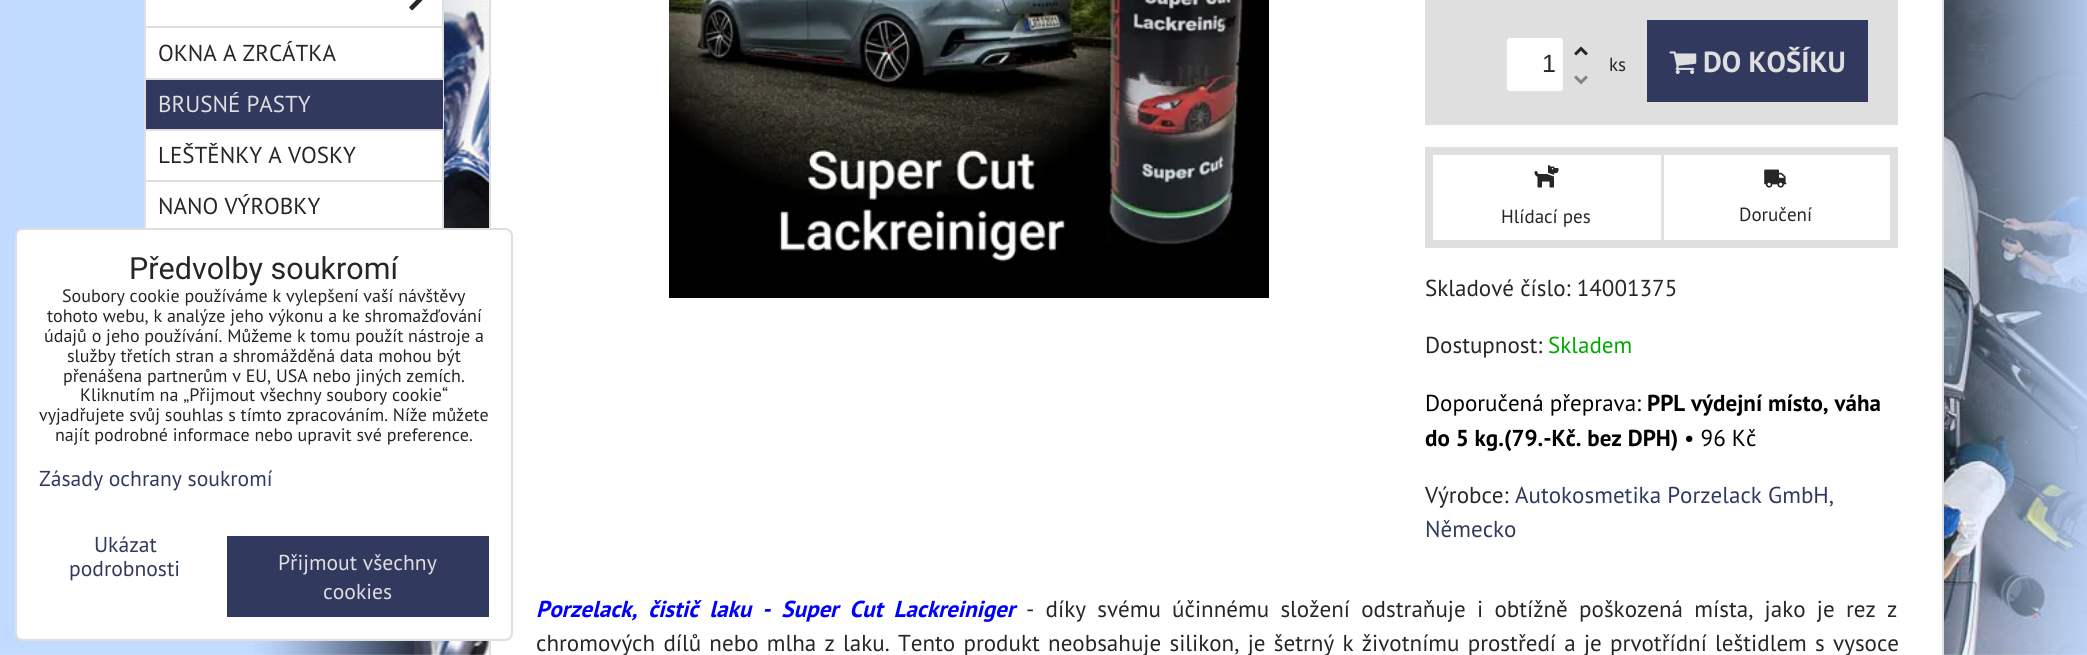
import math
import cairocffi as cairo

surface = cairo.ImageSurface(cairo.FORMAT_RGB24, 2087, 655)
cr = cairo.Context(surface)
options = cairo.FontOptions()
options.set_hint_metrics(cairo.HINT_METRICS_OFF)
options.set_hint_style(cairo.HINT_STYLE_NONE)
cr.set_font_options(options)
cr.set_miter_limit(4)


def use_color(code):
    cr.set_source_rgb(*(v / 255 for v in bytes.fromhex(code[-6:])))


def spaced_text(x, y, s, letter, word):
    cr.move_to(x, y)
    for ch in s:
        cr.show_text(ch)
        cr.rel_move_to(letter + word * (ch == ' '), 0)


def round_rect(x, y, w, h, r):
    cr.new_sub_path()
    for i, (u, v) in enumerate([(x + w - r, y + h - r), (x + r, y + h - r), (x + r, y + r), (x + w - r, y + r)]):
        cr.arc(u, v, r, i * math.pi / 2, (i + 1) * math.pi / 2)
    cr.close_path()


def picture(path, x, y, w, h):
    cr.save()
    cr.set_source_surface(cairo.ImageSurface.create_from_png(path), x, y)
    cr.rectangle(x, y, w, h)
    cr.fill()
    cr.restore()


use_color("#ffffff")
cr.paint()
picture("img1.png", 0, 0, 2087, 655)
use_color("#ffffff")
cr.rectangle(146, 0, 296, 228)
cr.fill()
cr.rectangle(145, -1, 298, 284)
use_color("#dfdfdf")
cr.stroke()
cr.rectangle(146, 26, 297, 2)
cr.fill()
picture("img2.png", 409, 0, 14, 11)
cr.rectangle(146, 78, 297, 2)
cr.fill()
cr.select_font_face("PT Sans")
cr.set_font_size(23.05)
use_color("#262626")
cr.move_to(158, 61)
cr.show_text("OKNA A ZRCÁTKA")
use_color("#32395e")
cr.rectangle(146, 80, 297, 49)
cr.fill()
use_color("#dfdfdf")
cr.rectangle(146, 129, 297, 2)
cr.fill()
use_color("#dfdfe0")
cr.move_to(158, 112)
cr.show_text("BRUSNÉ PASTY")
use_color("#dfdfdf")
cr.rectangle(146, 180, 297, 2)
cr.fill()
use_color("#262626")
cr.move_to(158, 163)
cr.show_text("LEŠTĚNKY A VOSKY")
cr.move_to(158, 214)
cr.show_text("NANO VÝROBKY")
use_color("#ffffff")
cr.rectangle(490, -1, 1453, 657)
cr.fill_preserve()
use_color("#dfdfdf")
cr.stroke()
picture("img3.png", 669, 0, 600, 298)
use_color("#dfdfe0")
cr.rectangle(1425, 0, 473, 125)
cr.fill()
use_color("#ffffff")
round_rect(1506, 37, 58, 55, 4)
cr.fill_preserve()
use_color("#dfdfdf")
cr.stroke()
cr.select_font_face("Liberation Sans")
cr.set_font_size(25)
use_color("#262626")
cr.move_to(1542, 72)
cr.show_text("1")
picture("img4.png", 1574, 46, 14, 10)
picture("img5.png", 1574, 75, 14, 10)
cr.select_font_face("PT Sans")
cr.set_font_size(19)
cr.move_to(1609, 71)
cr.show_text("ks")
use_color("#32395e")
cr.rectangle(1647, 20, 221, 82)
cr.fill()
picture("img6.png", 1669, 51, 28, 23)
cr.select_font_face("PT Sans", cairo.FONT_SLANT_NORMAL, cairo.FONT_WEIGHT_BOLD)
cr.set_font_size(29)
use_color("#dfdfe0")
cr.move_to(1703, 72)
cr.show_text("DO KOŠÍKU")
cr.rectangle(1429, 151, 465, 93)
cr.set_line_width(8)
cr.stroke()
picture("img7.png", 1534, 165, 25, 23)
cr.select_font_face("PT Sans")
cr.set_font_size(19)
use_color("#262626")
cr.move_to(1501, 223)
cr.show_text("Hlídací pes")
use_color("#dfdfe0")
cr.rectangle(1661, 155, 3, 85)
cr.fill()
picture("img8.png", 1764, 169, 23, 19)
use_color("#262626")
cr.move_to(1739, 221)
cr.show_text("Doručení")
cr.set_font_size(23.05)
cr.move_to(1425, 296)
cr.show_text("Skladové číslo: 14001375")
cr.move_to(1425, 353)
cr.show_text("Dostupnost:")
use_color("#00a800")
cr.move_to(1548, 353)
cr.show_text("Skladem")
use_color("#000000")
cr.move_to(1425, 411)
cr.show_text("Doporučená přeprava:")
cr.select_font_face("PT Sans", cairo.FONT_SLANT_NORMAL, cairo.FONT_WEIGHT_BOLD)
cr.move_to(1647, 411)
cr.show_text("PPL výdejní místo, váha")
cr.move_to(1425, 446)
cr.show_text("do 5 kg.(79.-Kč. bez DPH)")
cr.select_font_face("PT Sans")
cr.move_to(1684, 446)
cr.show_text("• 96 Kč")
use_color("#262626")
cr.move_to(1425, 503)
cr.show_text("Výrobce:")
use_color("#32395e")
cr.move_to(1515, 503)
cr.show_text("Autokosmetika Porzelack GmbH,")
cr.move_to(1425, 537)
cr.show_text("Německo")
cr.select_font_face("PT Sans", cairo.FONT_SLANT_ITALIC, cairo.FONT_WEIGHT_BOLD)
use_color("#0000ff")
spaced_text(536, 617, "Porzelack, čistič laku - Super Cut Lackreiniger", 0, 5.1)
cr.select_font_face("PT Sans")
use_color("#262626")
spaced_text(1026, 617, "- díky svému účinnému složení odstraňuje i obtížně poškozená místa, jako je rez z", 0, 5.1)
spaced_text(536, 651, "chromových dílů nebo mlha z laku. Tento produkt neobsahuje silikon, je šetrný k životnímu prostředí a je prvotřídní leštidlem s vysoce", 0, 2.1)
use_color("#ffffff")
round_rect(16, 229, 496, 411, 7)
cr.fill_preserve()
use_color("#dfdfdf")
cr.set_line_width(2)
cr.stroke()
cr.select_font_face("Roboto")
cr.set_font_size(30.5)
use_color("#262626")
cr.move_to(129, 279)
cr.show_text("Předvolby soukromí")
cr.select_font_face("PT Sans")
cr.set_font_size(18)
cr.move_to(62, 302)
cr.show_text("Soubory cookie používáme k vylepšení vaší návštěvy")
cr.move_to(47, 322)
cr.show_text("tohoto webu, k analýze jeho výkonu a ke shromažďování")
cr.move_to(44, 342)
cr.show_text("údajů o jeho používání. Můžeme k tomu použít nástroje a")
cr.move_to(67, 362)
cr.show_text("služby třetích stran a shromážděná data mohou být")
cr.move_to(63, 382)
cr.show_text("přenášena partnerům v EU, USA nebo jiných zemích.")
cr.move_to(80, 401)
cr.show_text("Kliknutím na „Přijmout všechny soubory cookie“")
cr.move_to(39, 421)
cr.show_text("vyjadřujete svůj souhlas s tímto zpracováním. Níže můžete")
cr.move_to(55, 441)
cr.show_text("najít podrobné informace nebo upravit své preference.")
cr.set_font_size(21.6)
use_color("#32395e")
cr.move_to(39, 486)
cr.show_text("Zásady ochrany soukromí")
cr.move_to(94, 552)
cr.show_text("Ukázat")
cr.move_to(69, 576)
cr.show_text("podrobnosti")
cr.rectangle(227, 536, 262, 81)
cr.fill()
use_color("#dfdfe0")
cr.move_to(278, 570)
cr.show_text("Přijmout všechny")
cr.move_to(323, 599)
cr.show_text("cookies")
surface.write_to_png("result.png")
